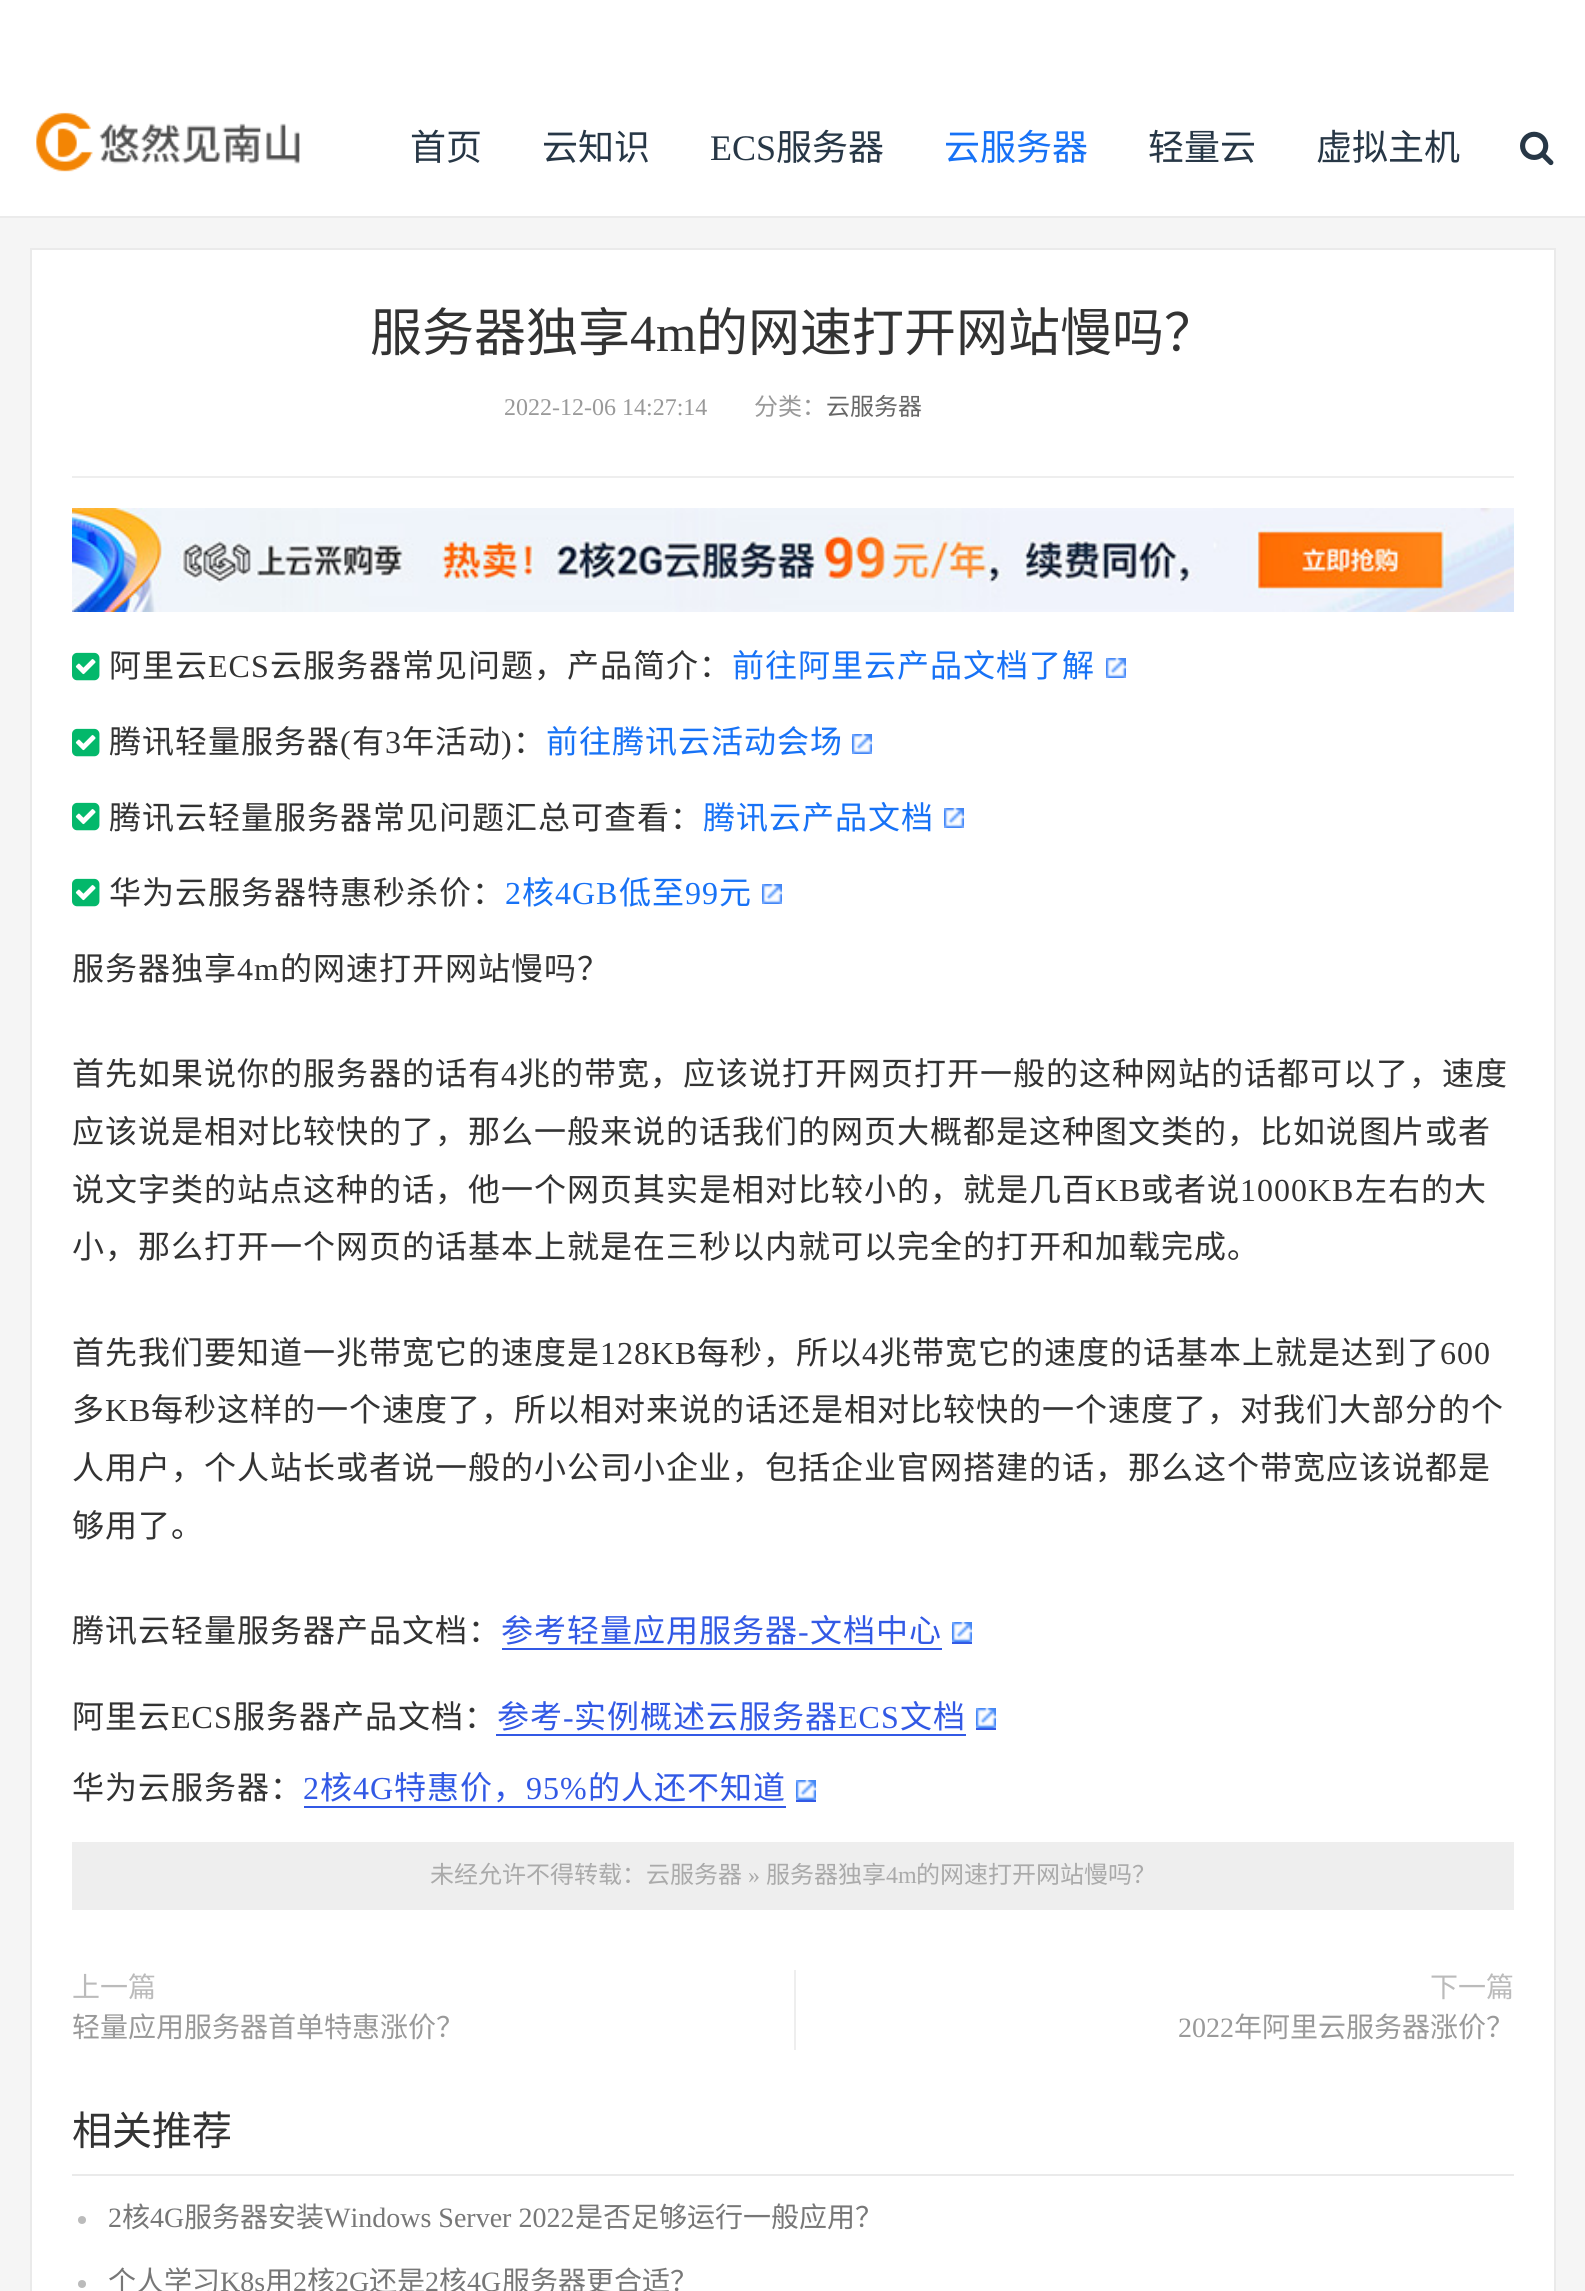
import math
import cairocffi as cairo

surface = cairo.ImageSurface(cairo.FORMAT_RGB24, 1585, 2291)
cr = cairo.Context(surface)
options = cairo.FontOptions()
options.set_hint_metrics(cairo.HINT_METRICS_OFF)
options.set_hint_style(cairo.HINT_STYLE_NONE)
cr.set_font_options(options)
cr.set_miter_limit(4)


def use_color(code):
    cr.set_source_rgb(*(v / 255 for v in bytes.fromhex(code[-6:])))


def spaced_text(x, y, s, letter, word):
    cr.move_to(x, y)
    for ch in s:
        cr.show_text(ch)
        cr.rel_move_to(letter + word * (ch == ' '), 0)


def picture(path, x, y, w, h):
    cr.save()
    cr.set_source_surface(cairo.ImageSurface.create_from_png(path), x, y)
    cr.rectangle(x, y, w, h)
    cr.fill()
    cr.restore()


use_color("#f5f5f5")
cr.paint()
use_color("#ffffff")
cr.rectangle(0, 0, 1585, 216)
cr.fill()
use_color("#ebebeb")
cr.rectangle(0, 216, 1585, 2)
cr.fill()
picture("img1.png", 36, 112, 264, 60)
cr.select_font_face("Noto Sans CJK SC")
cr.set_font_size(36)
use_color("#273746")
cr.move_to(410, 160)
cr.show_text("首页")
cr.move_to(542, 160)
cr.show_text("云知识")
cr.select_font_face("Liberation Serif")
cr.move_to(710, 160)
cr.show_text("ECS")
cr.select_font_face("Noto Sans CJK SC")
cr.move_to(776, 160)
cr.show_text("服务器")
use_color("#1772f6")
cr.move_to(944, 160)
cr.show_text("云服务器")
use_color("#273746")
cr.move_to(1148, 160)
cr.show_text("轻量云")
cr.move_to(1316, 160)
cr.show_text("虚拟主机")
picture("img2.png", 1520, 131, 34, 35)
use_color("#ffffff")
cr.rectangle(31, 249, 1524, 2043)
cr.fill_preserve()
use_color("#eaeaea")
cr.stroke()
use_color("#eeeeee")
cr.rectangle(72, 476, 1442, 2)
cr.fill()
cr.set_font_size(52)
use_color("#333333")
cr.move_to(370, 351)
cr.show_text("服务器独享")
cr.select_font_face("Liberation Serif")
cr.move_to(630, 351)
cr.show_text("4m")
cr.select_font_face("Noto Sans CJK SC")
cr.move_to(696, 351)
cr.show_text("的网速打开网站慢吗？")
cr.select_font_face("Liberation Serif")
cr.set_font_size(24)
use_color("#999999")
cr.move_to(504, 415)
cr.show_text("2022-12-06 14:27:14")
cr.select_font_face("Noto Sans CJK SC")
cr.move_to(754, 415)
cr.show_text("分类：")
use_color("#666666")
cr.move_to(826, 415)
cr.show_text("云服务器")
picture("img3.png", 72, 508, 1442, 104)
picture("img4.png", 72, 652, 28, 29)
cr.set_font_size(32)
use_color("#333333")
spaced_text(109, 677, "阿里云", 1, 0)
cr.select_font_face("Liberation Serif")
spaced_text(208, 677, "ECS", 1, 0)
cr.select_font_face("Noto Sans CJK SC")
spaced_text(270, 677, "云服务器常见问题，产品简介：", 1, 0)
use_color("#1772f6")
spaced_text(732, 677, "前往阿里云产品文档了解", 1, 0)
picture("img5.png", 1106, 658, 20, 20)
picture("img4.png", 72, 728, 28, 29)
use_color("#333333")
spaced_text(109, 753, "腾讯轻量服务器", 1, 0)
cr.select_font_face("Liberation Serif")
spaced_text(340, 753, "(", 1, 0)
cr.select_font_face("Noto Sans CJK SC")
spaced_text(352, 753, "有", 1, 0)
cr.select_font_face("Liberation Serif")
spaced_text(385, 753, "3", 1, 0)
cr.select_font_face("Noto Sans CJK SC")
spaced_text(402, 753, "年活动", 1, 0)
cr.select_font_face("Liberation Serif")
spaced_text(501, 753, ")", 1, 0)
cr.select_font_face("Noto Sans CJK SC")
spaced_text(513, 753, "：", 1, 0)
use_color("#1772f6")
spaced_text(546, 753, "前往腾讯云活动会场", 1, 0)
picture("img5.png", 852, 734, 20, 20)
picture("img4.png", 72, 802, 28, 29)
use_color("#333333")
spaced_text(109, 829, "腾讯云轻量服务器常见问题汇总可查看：", 1, 0)
use_color("#1772f6")
spaced_text(703, 829, "腾讯云产品文档", 1, 0)
picture("img5.png", 944, 808, 20, 20)
picture("img4.png", 72, 878, 28, 29)
use_color("#333333")
spaced_text(109, 904, "华为云服务器特惠秒杀价：", 1, 0)
cr.select_font_face("Liberation Serif")
use_color("#1772f6")
spaced_text(505, 904, "2", 1, 0)
cr.select_font_face("Noto Sans CJK SC")
spaced_text(522, 904, "核", 1, 0)
cr.select_font_face("Liberation Serif")
spaced_text(555, 904, "4GB", 1, 0)
cr.select_font_face("Noto Sans CJK SC")
spaced_text(619, 904, "低至", 1, 0)
cr.select_font_face("Liberation Serif")
spaced_text(685, 904, "99", 1, 0)
cr.select_font_face("Noto Sans CJK SC")
spaced_text(719, 904, "元", 1, 0)
picture("img5.png", 762, 884, 20, 20)
use_color("#333333")
spaced_text(72, 980, "服务器独享", 1, 0)
cr.select_font_face("Liberation Serif")
spaced_text(237, 980, "4m", 1, 0)
cr.select_font_face("Noto Sans CJK SC")
spaced_text(280, 980, "的网速打开网站慢吗？", 1, 0)
spaced_text(72, 1085, "首先如果说你的服务器的话有", 1, 0)
cr.select_font_face("Liberation Serif")
spaced_text(501, 1085, "4", 1, 0)
cr.select_font_face("Noto Sans CJK SC")
spaced_text(518, 1085, "兆的带宽，应该说打开网页打开一般的这种网站的话都可以了，速度", 1, 0)
spaced_text(72, 1143, "应该说是相对比较快的了，那么一般来说的话我们的网页大概都是这种图文类的，比如说图片或者", 1, 0)
spaced_text(72, 1201, "说文字类的站点这种的话，他一个网页其实是相对比较小的，就是几百", 1, 0)
cr.select_font_face("Liberation Serif")
spaced_text(1095, 1201, "KB", 1, 0)
cr.select_font_face("Noto Sans CJK SC")
spaced_text(1141, 1201, "或者说", 1, 0)
cr.select_font_face("Liberation Serif")
spaced_text(1240, 1201, "1000KB", 1, 0)
cr.select_font_face("Noto Sans CJK SC")
spaced_text(1355, 1201, "左右的大", 1, 0)
spaced_text(72, 1258, "小，那么打开一个网页的话基本上就是在三秒以内就可以完全的打开和加载完成。", 1, 0)
spaced_text(72, 1364, "首先我们要知道一兆带宽它的速度是", 1, 0)
cr.select_font_face("Liberation Serif")
spaced_text(600, 1364, "128KB", 1, 0)
cr.select_font_face("Noto Sans CJK SC")
spaced_text(697, 1364, "每秒，所以", 1, 0)
cr.select_font_face("Liberation Serif")
spaced_text(862, 1364, "4", 1, 0)
cr.select_font_face("Noto Sans CJK SC")
spaced_text(879, 1364, "兆带宽它的速度的话基本上就是达到了", 1, 0)
cr.select_font_face("Liberation Serif")
spaced_text(1440, 1364, "600", 1, 0)
cr.select_font_face("Noto Sans CJK SC")
spaced_text(72, 1421, "多", 1, 0)
cr.select_font_face("Liberation Serif")
spaced_text(105, 1421, "KB", 1, 0)
cr.select_font_face("Noto Sans CJK SC")
spaced_text(151, 1421, "每秒这样的一个速度了，所以相对来说的话还是相对比较快的一个速度了，对我们大部分的个", 1, 0)
spaced_text(72, 1479, "人用户，个人站长或者说一般的小公司小企业，包括企业官网搭建的话，那么这个带宽应该说都是", 1, 0)
spaced_text(72, 1537, "够用了。", 1, 0)
spaced_text(72, 1642, "腾讯云轻量服务器产品文档：", 1, 0)
use_color("#3259e5")
cr.rectangle(502, 1648, 440, 2)
cr.fill()
cr.rectangle(952, 1642, 20, 2)
cr.fill()
spaced_text(501, 1642, "参考轻量应用服务器", 1, 0)
cr.select_font_face("Liberation Serif")
spaced_text(798, 1642, "-", 1, 0)
cr.select_font_face("Noto Sans CJK SC")
spaced_text(810, 1642, "文档中心", 1, 0)
picture("img5.png", 952, 1622, 20, 20)
use_color("#333333")
spaced_text(72, 1728, "阿里云", 1, 0)
cr.select_font_face("Liberation Serif")
spaced_text(171, 1728, "ECS", 1, 0)
cr.select_font_face("Noto Sans CJK SC")
spaced_text(233, 1728, "服务器产品文档：", 1, 0)
use_color("#3259e5")
cr.rectangle(496, 1734, 470, 2)
cr.fill()
cr.rectangle(976, 1728, 20, 2)
cr.fill()
spaced_text(497, 1728, "参考", 1, 0)
cr.select_font_face("Liberation Serif")
spaced_text(563, 1728, "-", 1, 0)
cr.select_font_face("Noto Sans CJK SC")
spaced_text(574, 1728, "实例概述云服务器", 1, 0)
cr.select_font_face("Liberation Serif")
spaced_text(838, 1728, "ECS", 1, 0)
cr.select_font_face("Noto Sans CJK SC")
spaced_text(900, 1728, "文档", 1, 0)
picture("img5.png", 976, 1708, 20, 20)
use_color("#333333")
spaced_text(72, 1799, "华为云服务器：", 1, 0)
use_color("#3259e5")
cr.rectangle(304, 1806, 482, 2)
cr.fill()
cr.rectangle(796, 1800, 20, 2)
cr.fill()
cr.select_font_face("Liberation Serif")
spaced_text(303, 1799, "2", 1, 0)
cr.select_font_face("Noto Sans CJK SC")
spaced_text(320, 1799, "核", 1, 0)
cr.select_font_face("Liberation Serif")
spaced_text(353, 1799, "4G", 1, 0)
cr.select_font_face("Noto Sans CJK SC")
spaced_text(394, 1799, "特惠价，", 1, 0)
cr.select_font_face("Liberation Serif")
spaced_text(526, 1799, "95%", 1, 0)
cr.select_font_face("Noto Sans CJK SC")
spaced_text(588, 1799, "的人还不知道", 1, 0)
picture("img5.png", 796, 1780, 20, 20)
use_color("#eeeeee")
cr.rectangle(72, 1842, 1442, 68)
cr.fill()
cr.set_font_size(24)
use_color("#aaaaaa")
cr.move_to(430, 1883)
cr.show_text("未经允许不得转载：云服务器")
cr.select_font_face("Liberation Serif")
cr.move_to(748, 1883)
cr.show_text("»")
cr.select_font_face("Noto Sans CJK SC")
cr.move_to(766, 1883)
cr.show_text("服务器独享")
cr.select_font_face("Liberation Serif")
cr.move_to(886, 1883)
cr.show_text("4m")
cr.select_font_face("Noto Sans CJK SC")
cr.move_to(916, 1883)
cr.show_text("的网速打开网站慢吗？")
cr.set_font_size(28)
use_color("#bbbbbb")
cr.move_to(72, 1997)
cr.show_text("上一篇")
use_color("#999999")
cr.move_to(72, 2037)
cr.show_text("轻量应用服务器首单特惠涨价？")
use_color("#eeeeee")
cr.rectangle(794, 1970, 2, 80)
cr.fill()
use_color("#bbbbbb")
cr.move_to(1430, 1997)
cr.show_text("下一篇")
cr.select_font_face("Liberation Serif")
use_color("#999999")
cr.move_to(1178, 2037)
cr.show_text("2022")
cr.select_font_face("Noto Sans CJK SC")
cr.move_to(1234, 2037)
cr.show_text("年阿里云服务器涨价？")
use_color("#eaeaea")
cr.rectangle(72, 2174, 1442, 2)
cr.fill()
cr.set_font_size(40)
use_color("#333333")
cr.move_to(72, 2145)
cr.show_text("相关推荐")
use_color("#bbbbbb")
cr.new_path()
cr.arc(82, 2220, 4, 0, 2 * math.pi)
cr.fill()
cr.select_font_face("Liberation Serif")
cr.set_font_size(28)
use_color("#777777")
cr.move_to(108, 2227)
cr.show_text("2")
cr.select_font_face("Noto Sans CJK SC")
cr.move_to(122, 2227)
cr.show_text("核")
cr.select_font_face("Liberation Serif")
cr.move_to(150, 2227)
cr.show_text("4G")
cr.select_font_face("Noto Sans CJK SC")
cr.move_to(184, 2227)
cr.show_text("服务器安装")
cr.select_font_face("Liberation Serif")
cr.move_to(324, 2227)
cr.show_text("Windows Server 2022")
cr.select_font_face("Noto Sans CJK SC")
cr.move_to(575, 2227)
cr.show_text("是否足够运行一般应用？")
use_color("#bbbbbb")
cr.new_path()
cr.arc(82, 2284, 4, 0, 2 * math.pi)
cr.fill()
use_color("#777777")
cr.move_to(108, 2291)
cr.show_text("个人学习")
cr.select_font_face("Liberation Serif")
cr.move_to(220, 2291)
cr.show_text("K8s")
cr.select_font_face("Noto Sans CJK SC")
cr.move_to(265, 2291)
cr.show_text("用")
cr.select_font_face("Liberation Serif")
cr.move_to(293, 2291)
cr.show_text("2")
cr.select_font_face("Noto Sans CJK SC")
cr.move_to(307, 2291)
cr.show_text("核")
cr.select_font_face("Liberation Serif")
cr.move_to(335, 2291)
cr.show_text("2G")
cr.select_font_face("Noto Sans CJK SC")
cr.move_to(369, 2291)
cr.show_text("还是")
cr.select_font_face("Liberation Serif")
cr.move_to(425, 2291)
cr.show_text("2")
cr.select_font_face("Noto Sans CJK SC")
cr.move_to(439, 2291)
cr.show_text("核")
cr.select_font_face("Liberation Serif")
cr.move_to(467, 2291)
cr.show_text("4G")
cr.select_font_face("Noto Sans CJK SC")
cr.move_to(502, 2291)
cr.show_text("服务器更合适？")
surface.write_to_png("result.png")
